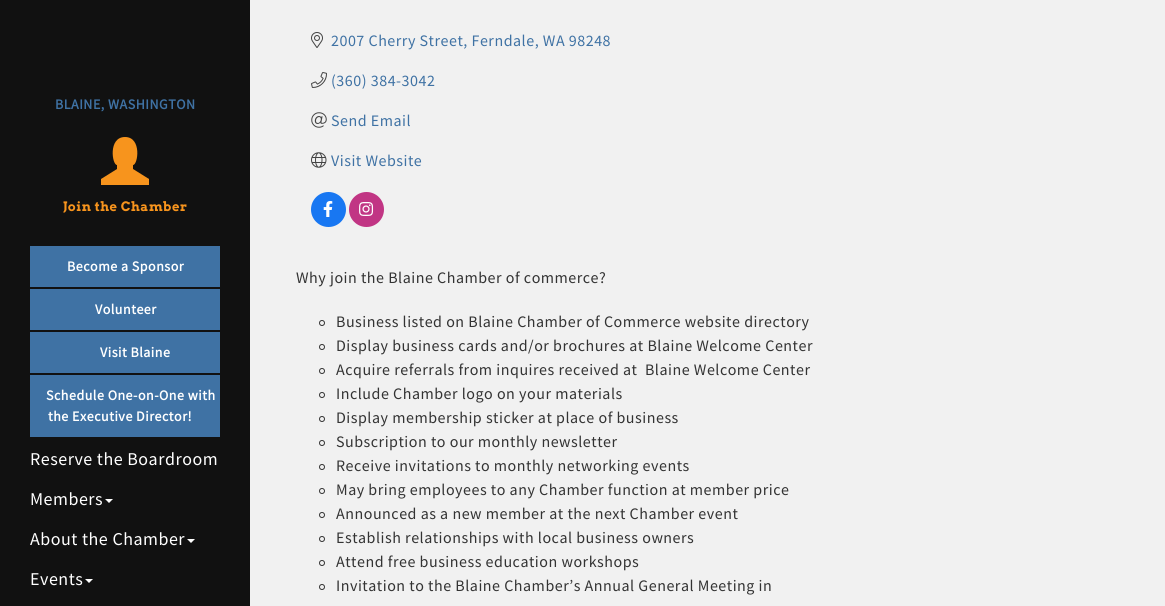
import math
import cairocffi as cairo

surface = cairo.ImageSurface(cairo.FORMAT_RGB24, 1165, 606)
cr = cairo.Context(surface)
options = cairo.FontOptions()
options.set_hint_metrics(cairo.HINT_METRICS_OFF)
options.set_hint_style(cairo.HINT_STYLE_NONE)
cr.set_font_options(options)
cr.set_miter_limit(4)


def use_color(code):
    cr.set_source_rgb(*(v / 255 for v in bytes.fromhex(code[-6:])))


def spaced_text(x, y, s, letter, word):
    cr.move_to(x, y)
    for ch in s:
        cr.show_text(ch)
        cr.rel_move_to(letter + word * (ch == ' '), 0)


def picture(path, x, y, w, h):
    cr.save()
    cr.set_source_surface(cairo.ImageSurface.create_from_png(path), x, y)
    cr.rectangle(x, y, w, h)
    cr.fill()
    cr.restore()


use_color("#f1f1f1")
cr.paint()
use_color("#111111")
cr.rectangle(0, 0, 250, 606)
cr.fill()
cr.select_font_face("Source Sans Pro", cairo.FONT_SLANT_NORMAL, cairo.FONT_WEIGHT_BOLD)
cr.set_font_size(14)
use_color("#3f72a4")
spaced_text(55, 109, "BLAINE, WASHINGTON", 0.5, 0)
use_color("#f7941d")
cr.new_path()
cr.move_to(101, 185)
cr.line_to(101, 179)
cr.line_to(117, 169)
cr.line_to(117, 165)
cr.curve_to(112, 165, 108, 137, 125, 137)
cr.curve_to(142, 137, 138, 165, 133, 165)
cr.line_to(133, 169)
cr.line_to(149, 179)
cr.line_to(149, 185)
cr.close_path()
cr.fill()
cr.select_font_face("Arvo", cairo.FONT_SLANT_NORMAL, cairo.FONT_WEIGHT_BOLD)
cr.set_font_size(13)
spaced_text(63, 211, "Join the Chamber", 0.5, 0)
use_color("#3f72a4")
cr.rectangle(30, 246, 190, 41)
cr.fill()
cr.select_font_face("Source Sans Pro", cairo.FONT_SLANT_NORMAL, cairo.FONT_WEIGHT_BOLD)
cr.set_font_size(14)
use_color("#ffffff")
spaced_text(67, 271, "Become a Sponsor", 0.5, 0)
use_color("#3f72a4")
cr.rectangle(30, 289, 190, 41)
cr.fill()
use_color("#ffffff")
spaced_text(95, 314, "Volunteer", 0.5, 0)
use_color("#3f72a4")
cr.rectangle(30, 332, 190, 41)
cr.fill()
use_color("#ffffff")
spaced_text(100, 357, "Visit Blaine", 0.5, 0)
use_color("#3f72a4")
cr.rectangle(30, 375, 190, 62)
cr.fill()
use_color("#ffffff")
spaced_text(46, 400, "Schedule One-on-One with", 0.5, 0)
spaced_text(48, 421, "the Executive Director!", 0.5, 0)
cr.select_font_face("Source Sans Pro")
cr.set_font_size(18)
spaced_text(30, 465, "Reserve the Boardroom", 0.5, 0)
spaced_text(30, 505, "Members", 0.5, 0)
cr.new_path()
cr.move_to(105, 499)
cr.line_to(113, 499)
cr.line_to(109, 503)
cr.close_path()
cr.fill()
spaced_text(30, 545, "About the Chamber", 0.5, 0)
cr.new_path()
cr.move_to(187, 539)
cr.line_to(195, 539)
cr.line_to(191, 543)
cr.close_path()
cr.fill()
spaced_text(30, 585, "Events", 0.5, 0)
cr.new_path()
cr.move_to(85, 579)
cr.line_to(93, 579)
cr.line_to(89, 583)
cr.close_path()
cr.fill()
picture("img1.png", 311, 32, 12, 16)
cr.set_font_size(16)
use_color("#3f72a4")
spaced_text(331, 46, "2007 Cherry Street, Ferndale, WA 98248", 0.5, 0)
picture("img2.png", 311, 72, 16, 16)
spaced_text(331, 86, "(360) 384-3042", 0.5, 0)
picture("img3.png", 311, 112, 16, 16)
spaced_text(331, 126, "Send Email", 0.5, 0)
picture("img4.png", 311, 152, 16, 16)
spaced_text(331, 166, "Visit Website", 0.5, 0)
use_color("#1877f2")
cr.new_path()
cr.arc(328.5, 209.5, 17.5, 0, 2 * math.pi)
cr.fill()
picture("img5.png", 323, 201, 10, 16)
use_color("#c13584")
cr.arc(366.5, 209.5, 17.5, 0, 2 * math.pi)
cr.fill()
picture("img6.png", 359, 202, 15, 14)
use_color("#333333")
spaced_text(296, 283, "Why join the Blaine Chamber of commerce?", 0.5, 0)
cr.new_path()
cr.arc(322, 323, 2.5, 0, 2 * math.pi)
cr.set_line_width(1)
cr.stroke()
spaced_text(336, 327, "Business listed on Blaine Chamber of Commerce website directory", 0.5, 0)
cr.new_path()
cr.arc(322, 347, 2.5, 0, 2 * math.pi)
cr.stroke()
spaced_text(336, 351, "Display business cards and/or brochures at Blaine Welcome Center", 0.5, 0)
cr.new_path()
cr.arc(322, 371, 2.5, 0, 2 * math.pi)
cr.stroke()
spaced_text(336, 375, "Acquire referrals from inquires received at  Blaine Welcome Center", 0.5, 0)
cr.new_path()
cr.arc(322, 395, 2.5, 0, 2 * math.pi)
cr.stroke()
spaced_text(336, 399, "Include Chamber logo on your materials", 0.5, 0)
cr.new_path()
cr.arc(322, 419, 2.5, 0, 2 * math.pi)
cr.stroke()
spaced_text(336, 423, "Display membership sticker at place of business", 0.5, 0)
cr.new_path()
cr.arc(322, 443, 2.5, 0, 2 * math.pi)
cr.stroke()
spaced_text(336, 447, "Subscription to our monthly newsletter", 0.5, 0)
cr.new_path()
cr.arc(322, 467, 2.5, 0, 2 * math.pi)
cr.stroke()
spaced_text(336, 471, "Receive invitations to monthly networking events", 0.5, 0)
cr.new_path()
cr.arc(322, 491, 2.5, 0, 2 * math.pi)
cr.stroke()
spaced_text(336, 495, "May bring employees to any Chamber function at member price", 0.5, 0)
cr.new_path()
cr.arc(322, 515, 2.5, 0, 2 * math.pi)
cr.stroke()
spaced_text(336, 519, "Announced as a new member at the next Chamber event", 0.5, 0)
cr.new_path()
cr.arc(322, 539, 2.5, 0, 2 * math.pi)
cr.stroke()
spaced_text(336, 543, "Establish relationships with local business owners", 0.5, 0)
cr.new_path()
cr.arc(322, 563, 2.5, 0, 2 * math.pi)
cr.stroke()
spaced_text(336, 567, "Attend free business education workshops", 0.5, 0)
cr.new_path()
cr.arc(322, 587, 2.5, 0, 2 * math.pi)
cr.stroke()
spaced_text(336, 591, "Invitation to the Blaine Chamber’s Annual General Meeting in", 0.5, 0)
surface.write_to_png("result.png")
